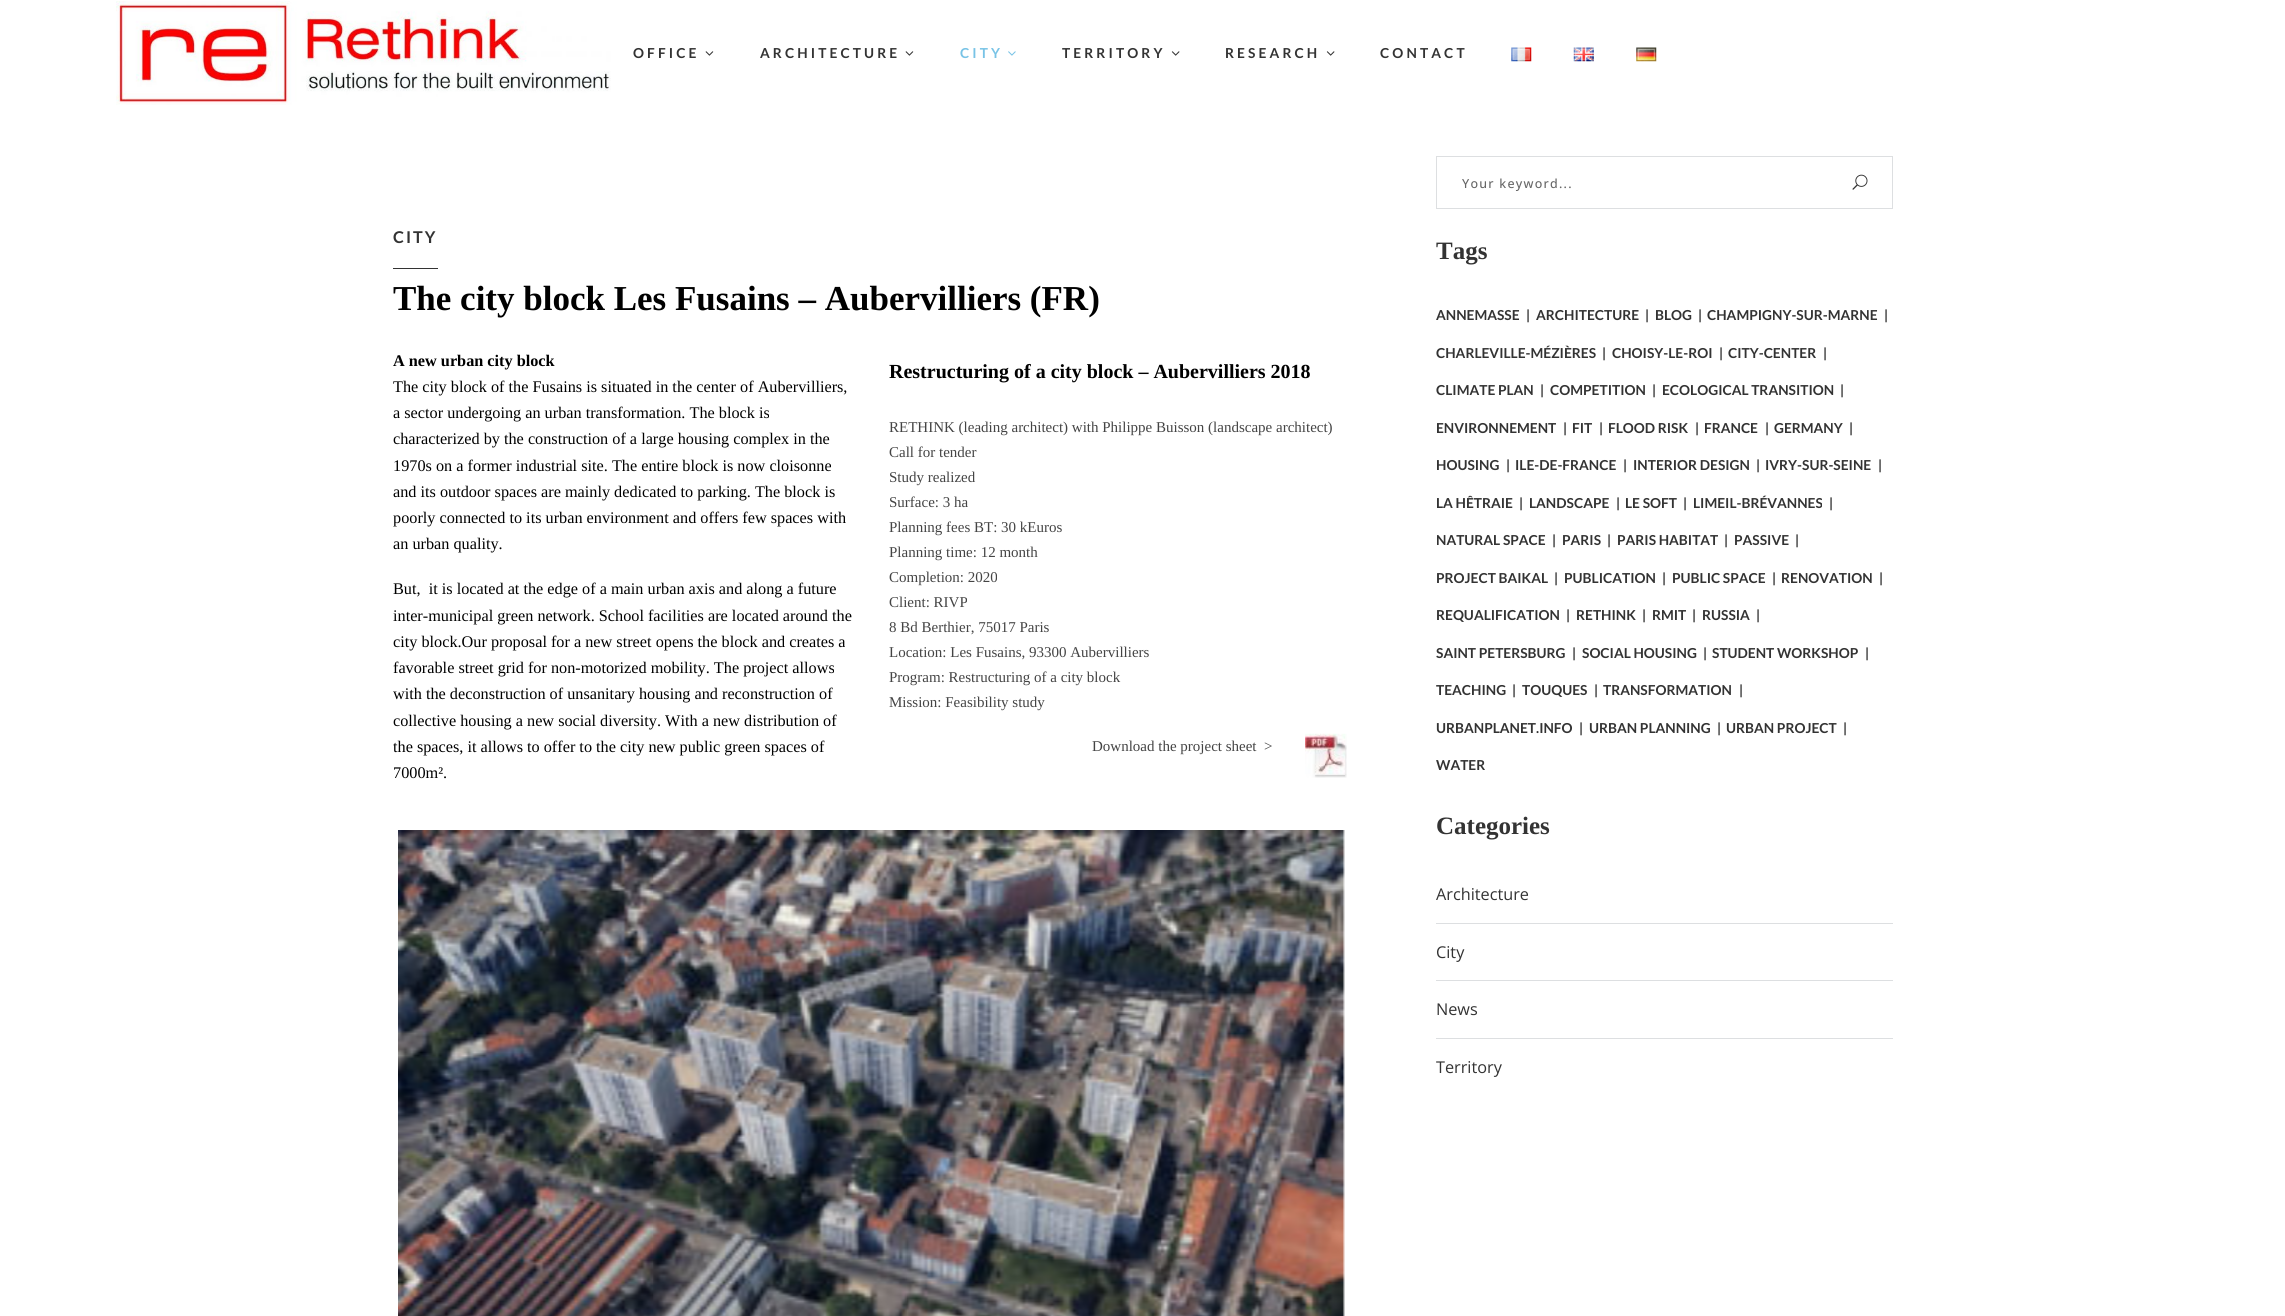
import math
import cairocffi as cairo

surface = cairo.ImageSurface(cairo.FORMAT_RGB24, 2285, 1316)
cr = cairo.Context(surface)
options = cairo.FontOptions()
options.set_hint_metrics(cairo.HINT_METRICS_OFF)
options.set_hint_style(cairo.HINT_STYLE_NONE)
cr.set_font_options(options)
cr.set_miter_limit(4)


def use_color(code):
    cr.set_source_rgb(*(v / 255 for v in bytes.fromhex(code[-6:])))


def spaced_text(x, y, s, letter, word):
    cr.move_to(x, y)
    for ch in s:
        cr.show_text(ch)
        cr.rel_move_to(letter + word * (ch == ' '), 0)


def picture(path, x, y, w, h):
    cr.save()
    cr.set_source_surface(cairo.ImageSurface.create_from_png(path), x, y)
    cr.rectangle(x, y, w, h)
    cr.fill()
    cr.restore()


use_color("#ffffff")
cr.paint()
picture("img1.png", 116, 1, 495, 104)
cr.select_font_face("Lato", cairo.FONT_SLANT_NORMAL, cairo.FONT_WEIGHT_BOLD)
cr.set_font_size(13.75)
use_color("#333333")
spaced_text(633, 58, "OFFICE", 3.1, 0)
picture("img2.png", 705, 51, 9, 5)
spaced_text(760, 58, "ARCHITECTURE", 3.1, 0)
picture("img2.png", 905, 51, 9, 5)
use_color("#78c3e6")
spaced_text(960, 58, "CITY", 3.1, 0)
picture("img3.png", 1008, 51, 8, 5)
use_color("#333333")
spaced_text(1062, 58, "TERRITORY", 3.1, 0)
picture("img4.png", 1171, 51, 9, 5)
spaced_text(1225, 58, "RESEARCH", 3.1, 0)
picture("img4.png", 1326, 51, 9, 5)
spaced_text(1380, 58, "CONTACT", 3.1, 0)
picture("img5.png", 1511, 47, 21, 15)
picture("img6.png", 1573, 47, 21, 15)
picture("img7.png", 1636, 47, 21, 15)
cr.set_font_size(16.25)
spaced_text(393, 243, "CITY", 2, 0)
cr.rectangle(393, 268, 45, 1)
cr.fill()
cr.select_font_face("Liberation Serif", cairo.FONT_SLANT_NORMAL, cairo.FONT_WEIGHT_BOLD)
cr.set_font_size(35)
use_color("#000000")
cr.move_to(393, 310)
cr.show_text("The city block Les Fusains – Aubervilliers (FR)")
cr.set_font_size(16.25)
cr.move_to(393, 366)
cr.show_text("A new urban city block")
cr.select_font_face("Liberation Serif")
cr.move_to(393, 392)
cr.show_text("The city block of the Fusains is situated in the center of Aubervilliers,")
cr.move_to(393, 418)
cr.show_text("a sector undergoing an urban transformation. The block is")
cr.move_to(393, 444)
cr.show_text("characterized by the construction of a large housing complex in the")
cr.move_to(393, 471)
cr.show_text("1970s on a former industrial site. The entire block is now cloisonne")
cr.move_to(393, 497)
cr.show_text("and its outdoor spaces are mainly dedicated to parking. The block is")
cr.move_to(393, 523)
cr.show_text("poorly connected to its urban environment and offers few spaces with")
cr.move_to(393, 549)
cr.show_text("an urban quality.")
cr.move_to(393, 594)
cr.show_text("But,  it is located at the edge of a main urban axis and along a future")
cr.move_to(393, 621)
cr.show_text("inter-municipal green network. School facilities are located around the")
cr.move_to(393, 647)
cr.show_text("city block.Our proposal for a new street opens the block and creates a")
cr.move_to(393, 673)
cr.show_text("favorable street grid for non-motorized mobility. The project allows")
cr.move_to(393, 699)
cr.show_text("with the deconstruction of unsanitary housing and reconstruction of")
cr.move_to(393, 726)
cr.show_text("collective housing a new social diversity. With a new distribution of")
cr.move_to(393, 752)
cr.show_text("the spaces, it allows to offer to the city new public green spaces of")
cr.move_to(393, 778)
cr.show_text("7000m².")
cr.select_font_face("Liberation Serif", cairo.FONT_SLANT_NORMAL, cairo.FONT_WEIGHT_BOLD)
cr.set_font_size(20)
cr.move_to(889, 378)
cr.show_text("Restructuring of a city block – Aubervilliers 2018")
cr.select_font_face("Liberation Serif")
cr.set_font_size(15)
use_color("#444444")
cr.move_to(889, 432)
cr.show_text("RETHINK (leading architect) with Philippe Buisson (landscape architect)")
cr.move_to(889, 457)
cr.show_text("Call for tender")
cr.move_to(889, 482)
cr.show_text("Study realized")
cr.move_to(889, 507)
cr.show_text("Surface: 3 ha")
cr.move_to(889, 532)
cr.show_text("Planning fees BT: 30 kEuros")
cr.move_to(889, 557)
cr.show_text("Planning time: 12 month")
cr.move_to(889, 582)
cr.show_text("Completion: 2020")
cr.move_to(889, 607)
cr.show_text("Client: RIVP")
cr.move_to(889, 632)
cr.show_text("8 Bd Berthier, 75017 Paris")
cr.move_to(889, 657)
cr.show_text("Location: Les Fusains, 93300 Aubervilliers")
cr.move_to(889, 682)
cr.show_text("Program: Restructuring of a city block")
cr.move_to(889, 707)
cr.show_text("Mission: Feasibility study")
cr.move_to(1092, 751)
cr.show_text("Download the project sheet  >")
picture("img8.png", 1305, 733, 42, 45)
picture("img9.png", 398, 830, 947, 486)
cr.rectangle(1436.5, 156.5, 456, 52)
use_color("#dddfe1")
cr.set_line_width(1)
cr.stroke()
cr.select_font_face("Open Sans Medium")
cr.set_font_size(12.5)
use_color("#666666")
spaced_text(1462, 188, "Your keyword...", 1.25, 0)
picture("img10.png", 1852, 174, 16, 16)
cr.select_font_face("Liberation Serif", cairo.FONT_SLANT_NORMAL, cairo.FONT_WEIGHT_BOLD)
cr.set_font_size(25)
use_color("#333333")
cr.move_to(1436, 259)
cr.show_text("Tags")
cr.select_font_face("Lato", cairo.FONT_SLANT_NORMAL, cairo.FONT_WEIGHT_BOLD)
cr.set_font_size(13.75)
cr.move_to(1436, 320)
cr.show_text("ANNEMASSE")
cr.move_to(1526, 320)
cr.show_text("|")
cr.move_to(1536, 320)
cr.show_text("ARCHITECTURE")
cr.move_to(1645, 320)
cr.show_text("|")
cr.move_to(1655, 320)
cr.show_text("BLOG")
cr.move_to(1698, 320)
cr.show_text("|")
cr.move_to(1707, 320)
cr.show_text("CHAMPIGNY-SUR-MARNE")
cr.move_to(1884, 320)
cr.show_text("|")
cr.move_to(1436, 358)
cr.show_text("CHARLEVILLE-MÉZIÈRES")
cr.move_to(1602, 358)
cr.show_text("|")
cr.move_to(1612, 358)
cr.show_text("CHOISY-LE-ROI")
cr.move_to(1719, 358)
cr.show_text("|")
cr.move_to(1728, 358)
cr.show_text("CITY-CENTER")
cr.move_to(1823, 358)
cr.show_text("|")
cr.move_to(1436, 395)
cr.show_text("CLIMATE PLAN")
cr.move_to(1540, 395)
cr.show_text("|")
cr.move_to(1550, 395)
cr.show_text("COMPETITION")
cr.move_to(1652, 395)
cr.show_text("|")
cr.move_to(1662, 395)
cr.show_text("ECOLOGICAL TRANSITION")
cr.move_to(1840, 395)
cr.show_text("|")
cr.move_to(1436, 433)
cr.show_text("ENVIRONNEMENT")
cr.move_to(1563, 433)
cr.show_text("|")
cr.move_to(1572, 433)
cr.show_text("FIT")
cr.move_to(1599, 433)
cr.show_text("|")
cr.move_to(1608, 433)
cr.show_text("FLOOD RISK")
cr.move_to(1695, 433)
cr.show_text("|")
cr.move_to(1704, 433)
cr.show_text("FRANCE")
cr.move_to(1765, 433)
cr.show_text("|")
cr.move_to(1774, 433)
cr.show_text("GERMANY")
cr.move_to(1849, 433)
cr.show_text("|")
cr.move_to(1436, 470)
cr.show_text("HOUSING")
cr.move_to(1506, 470)
cr.show_text("|")
cr.move_to(1515, 470)
cr.show_text("ILE-DE-FRANCE")
cr.move_to(1623, 470)
cr.show_text("|")
cr.move_to(1633, 470)
cr.show_text("INTERIOR DESIGN")
cr.move_to(1756, 470)
cr.show_text("|")
cr.move_to(1765, 470)
cr.show_text("IVRY-SUR-SEINE")
cr.move_to(1878, 470)
cr.show_text("|")
cr.move_to(1436, 508)
cr.show_text("LA HÊTRAIE")
cr.move_to(1519, 508)
cr.show_text("|")
cr.move_to(1529, 508)
cr.show_text("LANDSCAPE")
cr.move_to(1616, 508)
cr.show_text("|")
cr.move_to(1625, 508)
cr.show_text("LE SOFT")
cr.move_to(1683, 508)
cr.show_text("|")
cr.move_to(1693, 508)
cr.show_text("LIMEIL-BRÉVANNES")
cr.move_to(1829, 508)
cr.show_text("|")
cr.move_to(1436, 545)
cr.show_text("NATURAL SPACE")
cr.move_to(1552, 545)
cr.show_text("|")
cr.move_to(1562, 545)
cr.show_text("PARIS")
cr.move_to(1607, 545)
cr.show_text("|")
cr.move_to(1617, 545)
cr.show_text("PARIS HABITAT")
cr.move_to(1724, 545)
cr.show_text("|")
cr.move_to(1734, 545)
cr.show_text("PASSIVE")
cr.move_to(1795, 545)
cr.show_text("|")
cr.move_to(1436, 583)
cr.show_text("PROJECT BAIKAL")
cr.move_to(1554, 583)
cr.show_text("|")
cr.move_to(1564, 583)
cr.show_text("PUBLICATION")
cr.move_to(1662, 583)
cr.show_text("|")
cr.move_to(1672, 583)
cr.show_text("PUBLIC SPACE")
cr.move_to(1772, 583)
cr.show_text("|")
cr.move_to(1781, 583)
cr.show_text("RENOVATION")
cr.move_to(1879, 583)
cr.show_text("|")
cr.move_to(1436, 620)
cr.show_text("REQUALIFICATION")
cr.move_to(1566, 620)
cr.show_text("|")
cr.move_to(1576, 620)
cr.show_text("RETHINK")
cr.move_to(1642, 620)
cr.show_text("|")
cr.move_to(1652, 620)
cr.show_text("RMIT")
cr.move_to(1692, 620)
cr.show_text("|")
cr.move_to(1702, 620)
cr.show_text("RUSSIA")
cr.move_to(1756, 620)
cr.show_text("|")
cr.move_to(1436, 658)
cr.show_text("SAINT PETERSBURG")
cr.move_to(1572, 658)
cr.show_text("|")
cr.move_to(1582, 658)
cr.show_text("SOCIAL HOUSING")
cr.move_to(1703, 658)
cr.show_text("|")
cr.move_to(1712, 658)
cr.show_text("STUDENT WORKSHOP")
cr.move_to(1865, 658)
cr.show_text("|")
cr.move_to(1436, 695)
cr.show_text("TEACHING")
cr.move_to(1512, 695)
cr.show_text("|")
cr.move_to(1522, 695)
cr.show_text("TOUQUES")
cr.move_to(1594, 695)
cr.show_text("|")
cr.move_to(1603, 695)
cr.show_text("TRANSFORMATION")
cr.move_to(1739, 695)
cr.show_text("|")
cr.move_to(1436, 733)
cr.show_text("URBANPLANET.INFO")
cr.move_to(1579, 733)
cr.show_text("|")
cr.move_to(1589, 733)
cr.show_text("URBAN PLANNING")
cr.move_to(1717, 733)
cr.show_text("|")
cr.move_to(1726, 733)
cr.show_text("URBAN PROJECT")
cr.move_to(1843, 733)
cr.show_text("|")
cr.move_to(1436, 770)
cr.show_text("WATER")
cr.select_font_face("Liberation Serif", cairo.FONT_SLANT_NORMAL, cairo.FONT_WEIGHT_BOLD)
cr.set_font_size(25)
cr.move_to(1436, 834)
cr.show_text("Categories")
use_color("#dddfe1")
cr.rectangle(1436, 923, 457, 1)
cr.fill()
cr.select_font_face("Open Sans")
cr.set_font_size(16.25)
use_color("#333333")
cr.move_to(1436, 900)
cr.show_text("Architecture")
use_color("#dddfe1")
cr.rectangle(1436, 980, 457, 1)
cr.fill()
use_color("#333333")
cr.move_to(1436, 958)
cr.show_text("City")
use_color("#dddfe1")
cr.rectangle(1436, 1038, 457, 1)
cr.fill()
use_color("#333333")
cr.move_to(1436, 1015)
cr.show_text("News")
cr.move_to(1436, 1073)
cr.show_text("Territory")
surface.write_to_png("result.png")
